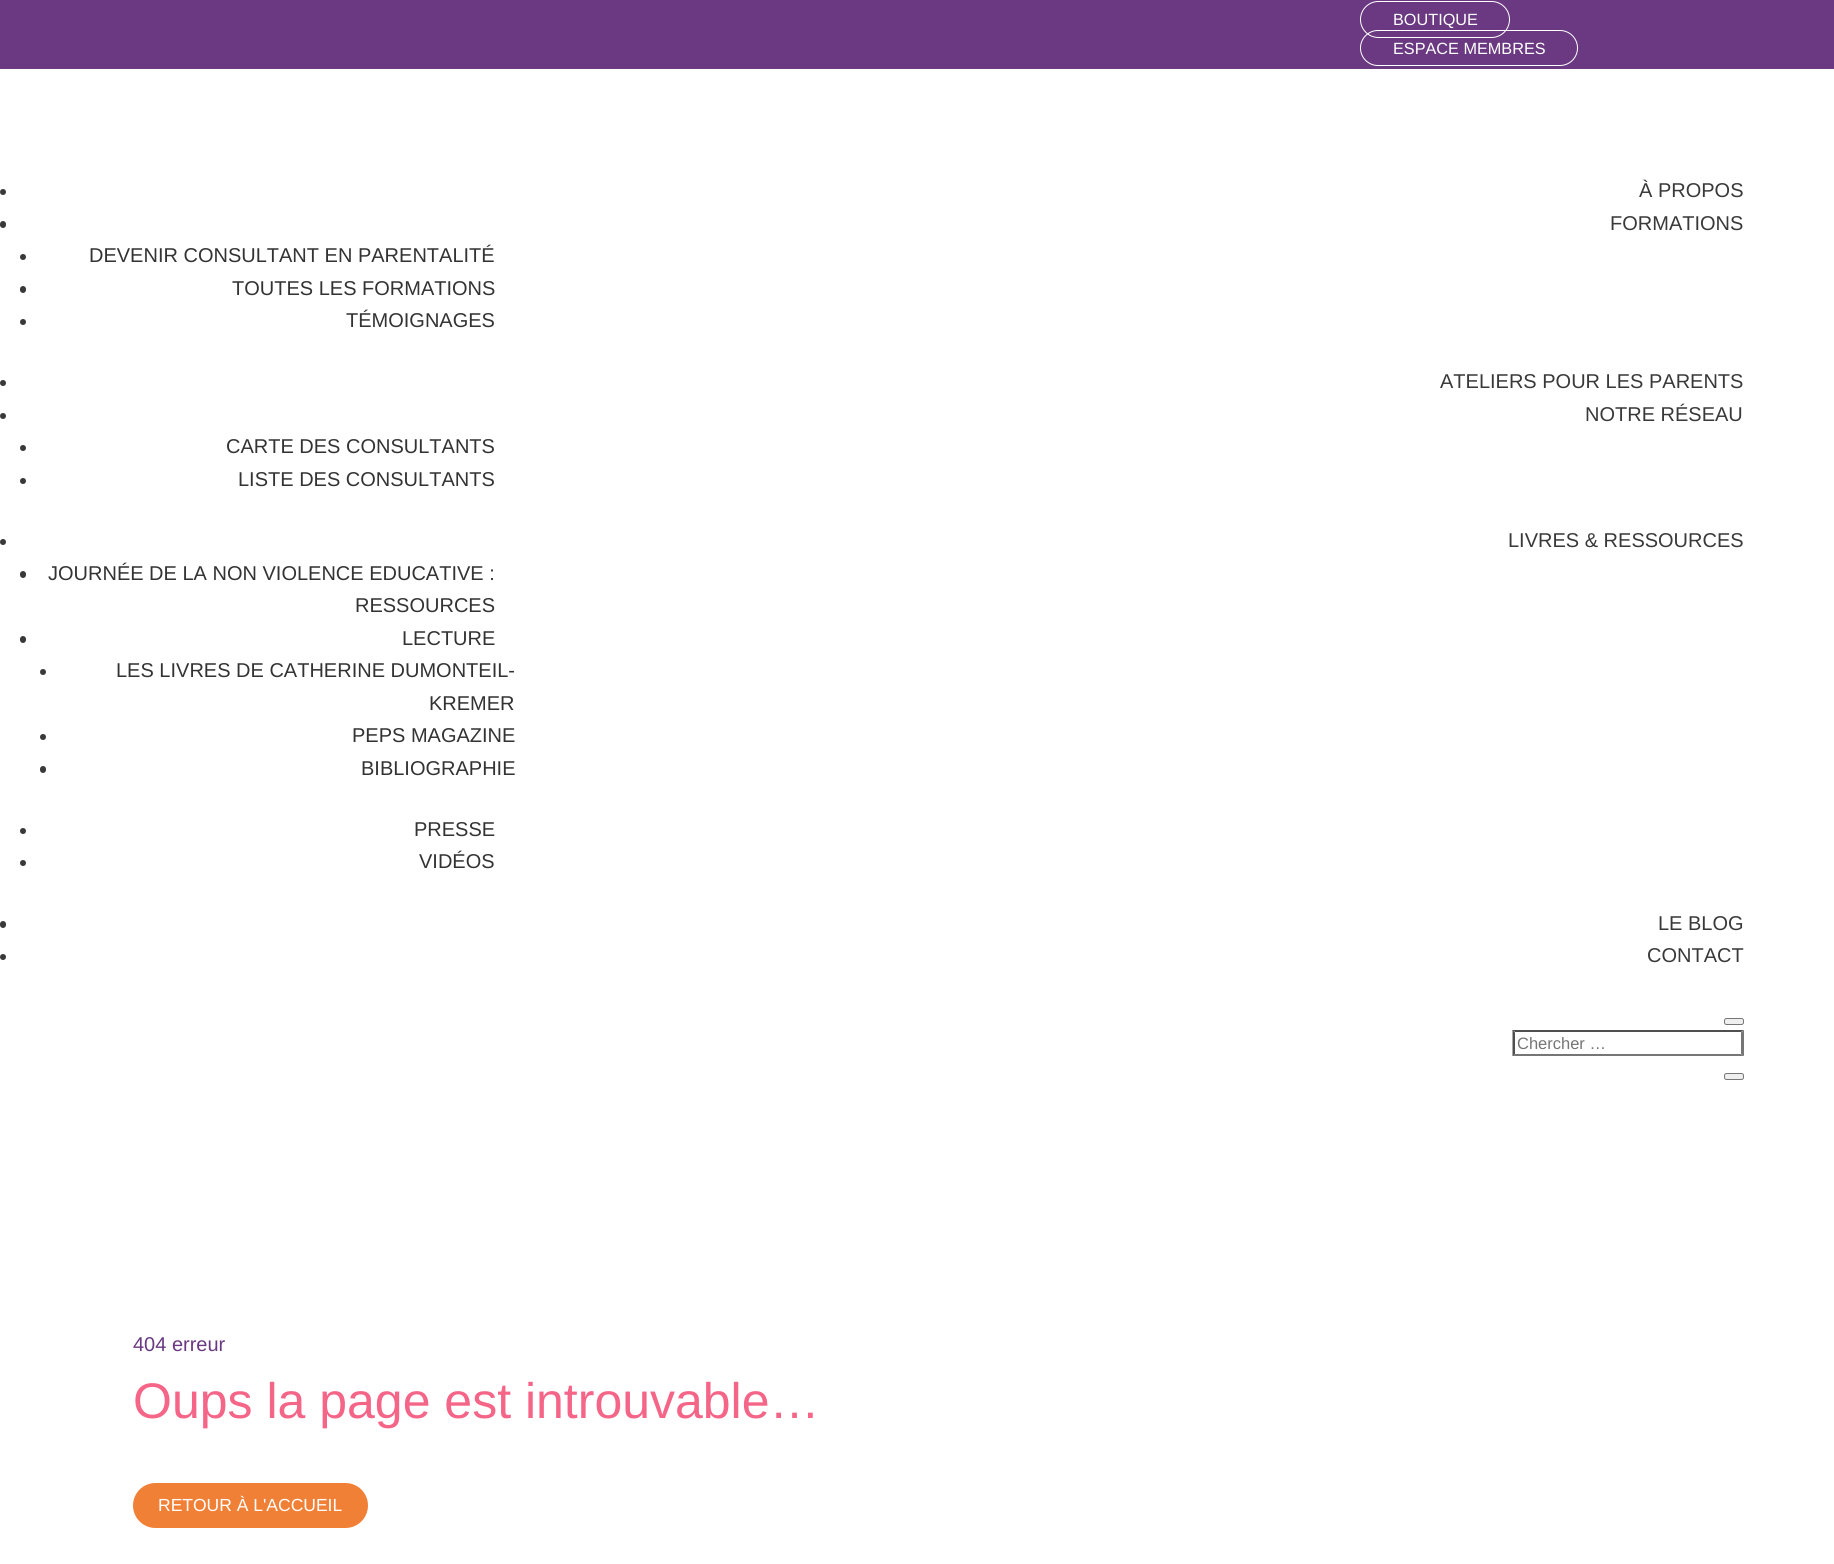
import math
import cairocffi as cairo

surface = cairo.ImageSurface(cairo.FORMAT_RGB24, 1834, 1564)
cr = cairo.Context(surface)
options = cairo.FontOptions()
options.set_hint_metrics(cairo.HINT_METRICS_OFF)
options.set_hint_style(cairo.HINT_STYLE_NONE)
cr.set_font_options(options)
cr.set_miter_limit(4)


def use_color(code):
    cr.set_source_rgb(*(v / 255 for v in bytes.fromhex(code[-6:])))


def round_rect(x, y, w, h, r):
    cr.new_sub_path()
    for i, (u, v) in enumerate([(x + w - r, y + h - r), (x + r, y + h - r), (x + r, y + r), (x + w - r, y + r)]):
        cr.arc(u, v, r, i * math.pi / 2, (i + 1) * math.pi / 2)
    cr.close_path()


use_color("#ffffff")
cr.paint()
use_color("#6a3981")
cr.rectangle(0, 0, 1834, 69)
cr.fill()
round_rect(1360.5, 1.5, 149, 36, 18)
use_color("#ffffff")
cr.set_line_width(1)
cr.stroke()
cr.select_font_face("Liberation Sans")
cr.set_font_size(16.25)
cr.move_to(1393, 25)
cr.show_text("BOUTIQUE")
round_rect(1360.5, 30.5, 217, 35, 17.5)
cr.stroke()
cr.move_to(1393, 54)
cr.show_text("ESPACE MEMBRES")
use_color("#393939")
cr.new_path()
cr.arc(3, 192, 3, 0, 2 * math.pi)
cr.fill()
cr.set_font_size(20)
cr.move_to(1639, 197)
cr.show_text("À PROPOS")
round_rect(0, 221, 6, 7, 3)
cr.fill()
cr.move_to(1610, 230)
cr.show_text("FORMATIONS")
cr.new_path()
cr.arc(23, 257, 3, 0, 2 * math.pi)
cr.fill()
use_color("#333333")
cr.move_to(89, 262)
cr.show_text("DEVENIR CONSULTANT EN PARENTALITÉ")
use_color("#393939")
round_rect(20, 286, 6, 7, 3)
cr.fill()
use_color("#333333")
cr.move_to(232, 295)
cr.show_text("TOUTES LES FORMATIONS")
use_color("#393939")
cr.new_path()
cr.arc(23, 322, 3, 0, 2 * math.pi)
cr.fill()
use_color("#333333")
cr.move_to(346, 327)
cr.show_text("TÉMOIGNAGES")
use_color("#393939")
cr.new_path()
cr.arc(3, 383, 3, 0, 2 * math.pi)
cr.fill()
cr.move_to(1440, 388)
cr.show_text("ATELIERS POUR LES PARENTS")
cr.new_path()
cr.arc(3, 416, 3, 0, 2 * math.pi)
cr.fill()
cr.move_to(1585, 421)
cr.show_text("NOTRE RÉSEAU")
cr.new_path()
cr.arc(23, 448, 3, 0, 2 * math.pi)
cr.fill()
use_color("#333333")
cr.move_to(226, 453)
cr.show_text("CARTE DES CONSULTANTS")
use_color("#393939")
cr.new_path()
cr.arc(23, 481, 3, 0, 2 * math.pi)
cr.fill()
use_color("#333333")
cr.move_to(238, 486)
cr.show_text("LISTE DES CONSULTANTS")
use_color("#393939")
cr.new_path()
cr.arc(3, 542, 3, 0, 2 * math.pi)
cr.fill()
cr.move_to(1508, 547)
cr.show_text("LIVRES & RESSOURCES")
round_rect(20, 571, 6, 7, 3)
cr.fill()
use_color("#333333")
cr.move_to(48, 580)
cr.show_text("JOURNÉE DE LA NON VIOLENCE EDUCATIVE :")
cr.move_to(355, 612)
cr.show_text("RESSOURCES")
use_color("#393939")
round_rect(20, 636, 6, 7, 3)
cr.fill()
use_color("#333333")
cr.move_to(402, 645)
cr.show_text("LECTURE")
use_color("#393939")
cr.new_path()
cr.arc(43, 672, 3, 0, 2 * math.pi)
cr.fill()
use_color("#333333")
cr.move_to(116, 677)
cr.show_text("LES LIVRES DE CATHERINE DUMONTEIL-")
cr.move_to(429, 710)
cr.show_text("KREMER")
use_color("#393939")
cr.new_path()
cr.arc(43, 737, 3, 0, 2 * math.pi)
cr.fill()
use_color("#333333")
cr.move_to(352, 742)
cr.show_text("PEPS MAGAZINE")
use_color("#393939")
round_rect(40, 766, 6, 7, 3)
cr.fill()
use_color("#333333")
cr.move_to(361, 775)
cr.show_text("BIBLIOGRAPHIE")
use_color("#393939")
cr.new_path()
cr.arc(23, 831, 3, 0, 2 * math.pi)
cr.fill()
use_color("#333333")
cr.move_to(414, 836)
cr.show_text("PRESSE")
use_color("#393939")
cr.new_path()
cr.arc(23, 863, 3, 0, 2 * math.pi)
cr.fill()
use_color("#333333")
cr.move_to(419, 868)
cr.show_text("VIDÉOS")
use_color("#393939")
round_rect(0, 921, 6, 7, 3)
cr.fill()
cr.move_to(1658, 930)
cr.show_text("LE BLOG")
cr.new_path()
cr.arc(3, 957, 3, 0, 2 * math.pi)
cr.fill()
cr.move_to(1647, 962)
cr.show_text("CONTACT")
use_color("#efefef")
round_rect(1724.5, 1018.5, 19, 6, 2)
cr.fill_preserve()
use_color("#767676")
cr.stroke()
use_color("#4f4f4f")
cr.new_path()
cr.move_to(1512, 1030)
cr.line_to(1744, 1030)
cr.line_to(1741, 1032)
cr.line_to(1515, 1032)
cr.close_path()
cr.fill()
use_color("#767676")
cr.new_path()
cr.move_to(1744, 1030)
cr.line_to(1744, 1056)
cr.line_to(1741, 1054)
cr.line_to(1741, 1032.5)
cr.close_path()
cr.fill()
cr.new_path()
cr.move_to(1744, 1056)
cr.line_to(1512, 1056)
cr.line_to(1515, 1054)
cr.line_to(1741, 1054)
cr.close_path()
cr.fill()
use_color("#4f4f4f")
cr.new_path()
cr.move_to(1512.5, 1056)
cr.line_to(1512.5, 1030)
cr.line_to(1515, 1032.5)
cr.line_to(1515, 1054)
cr.close_path()
cr.fill()
cr.set_font_size(16.5)
use_color("#757575")
cr.move_to(1517, 1049)
cr.show_text("Chercher …")
use_color("#efefef")
round_rect(1724.5, 1073.5, 19, 6, 2)
cr.fill_preserve()
use_color("#767676")
cr.stroke()
cr.set_font_size(20)
use_color("#6a3981")
cr.move_to(133, 1351)
cr.show_text("404 erreur")
cr.set_font_size(50)
use_color("#f46588")
cr.move_to(133, 1418)
cr.show_text("Oups la page est introuvable…")
use_color("#f18037")
round_rect(137, 1487, 227, 37, 18.5)
cr.fill_preserve()
cr.set_line_width(8)
cr.stroke()
cr.set_font_size(17.5)
use_color("#ffffff")
cr.move_to(158, 1511)
cr.show_text("RETOUR À L'ACCUEIL")
surface.write_to_png("result.png")
